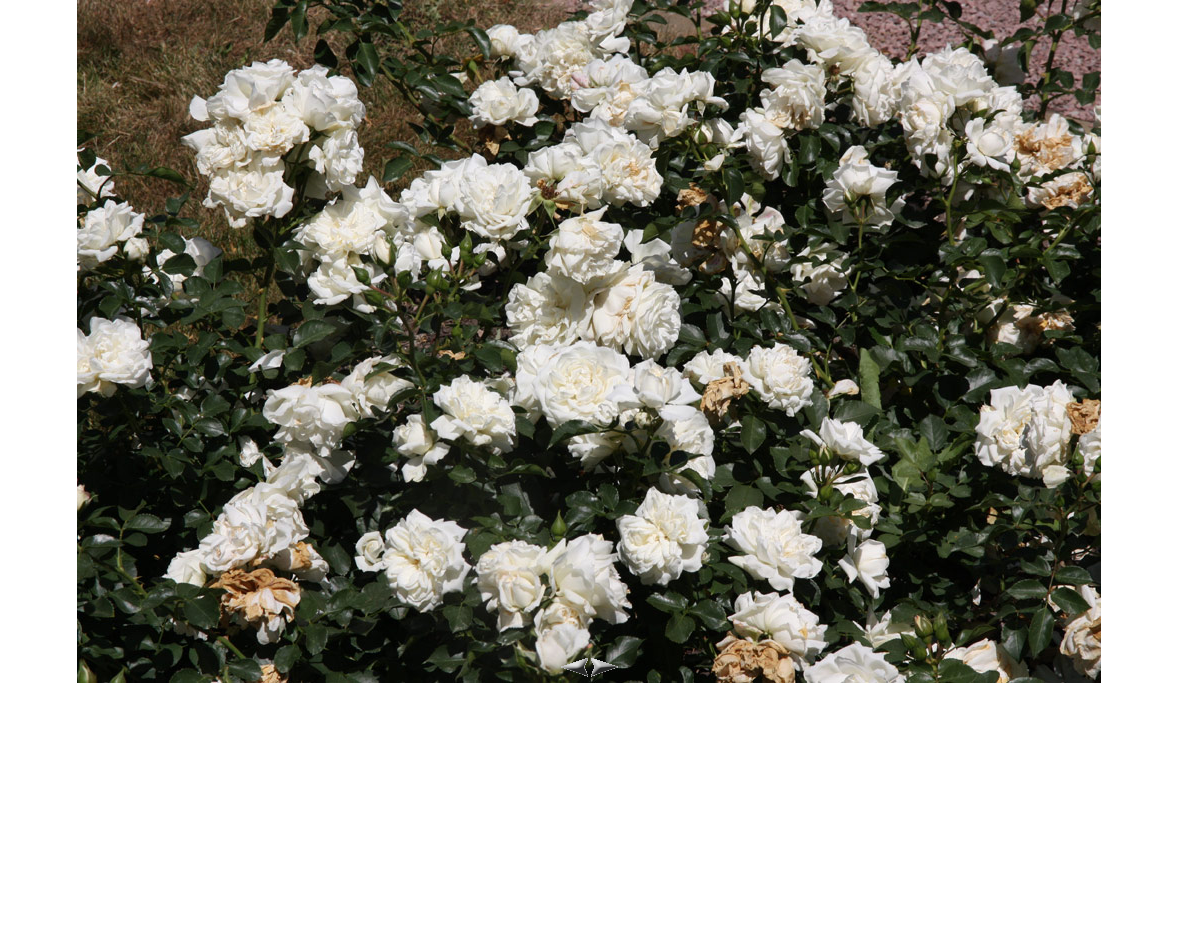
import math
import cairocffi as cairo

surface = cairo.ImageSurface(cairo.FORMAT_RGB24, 1178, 951)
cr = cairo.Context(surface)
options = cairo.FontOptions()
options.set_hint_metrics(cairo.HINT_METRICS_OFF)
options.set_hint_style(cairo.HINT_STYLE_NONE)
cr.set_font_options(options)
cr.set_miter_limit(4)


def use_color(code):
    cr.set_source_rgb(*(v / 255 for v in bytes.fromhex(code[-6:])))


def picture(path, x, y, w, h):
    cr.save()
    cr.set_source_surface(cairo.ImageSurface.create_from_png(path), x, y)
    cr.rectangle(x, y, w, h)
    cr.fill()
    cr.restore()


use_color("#ffffff")
cr.paint()
picture("img1.png", 77, 0, 1024, 683)
picture("img2.png", 561, 658, 27, 19)
picture("img3.png", 591, 658, 27, 19)
surface.write_to_png("result.png")
